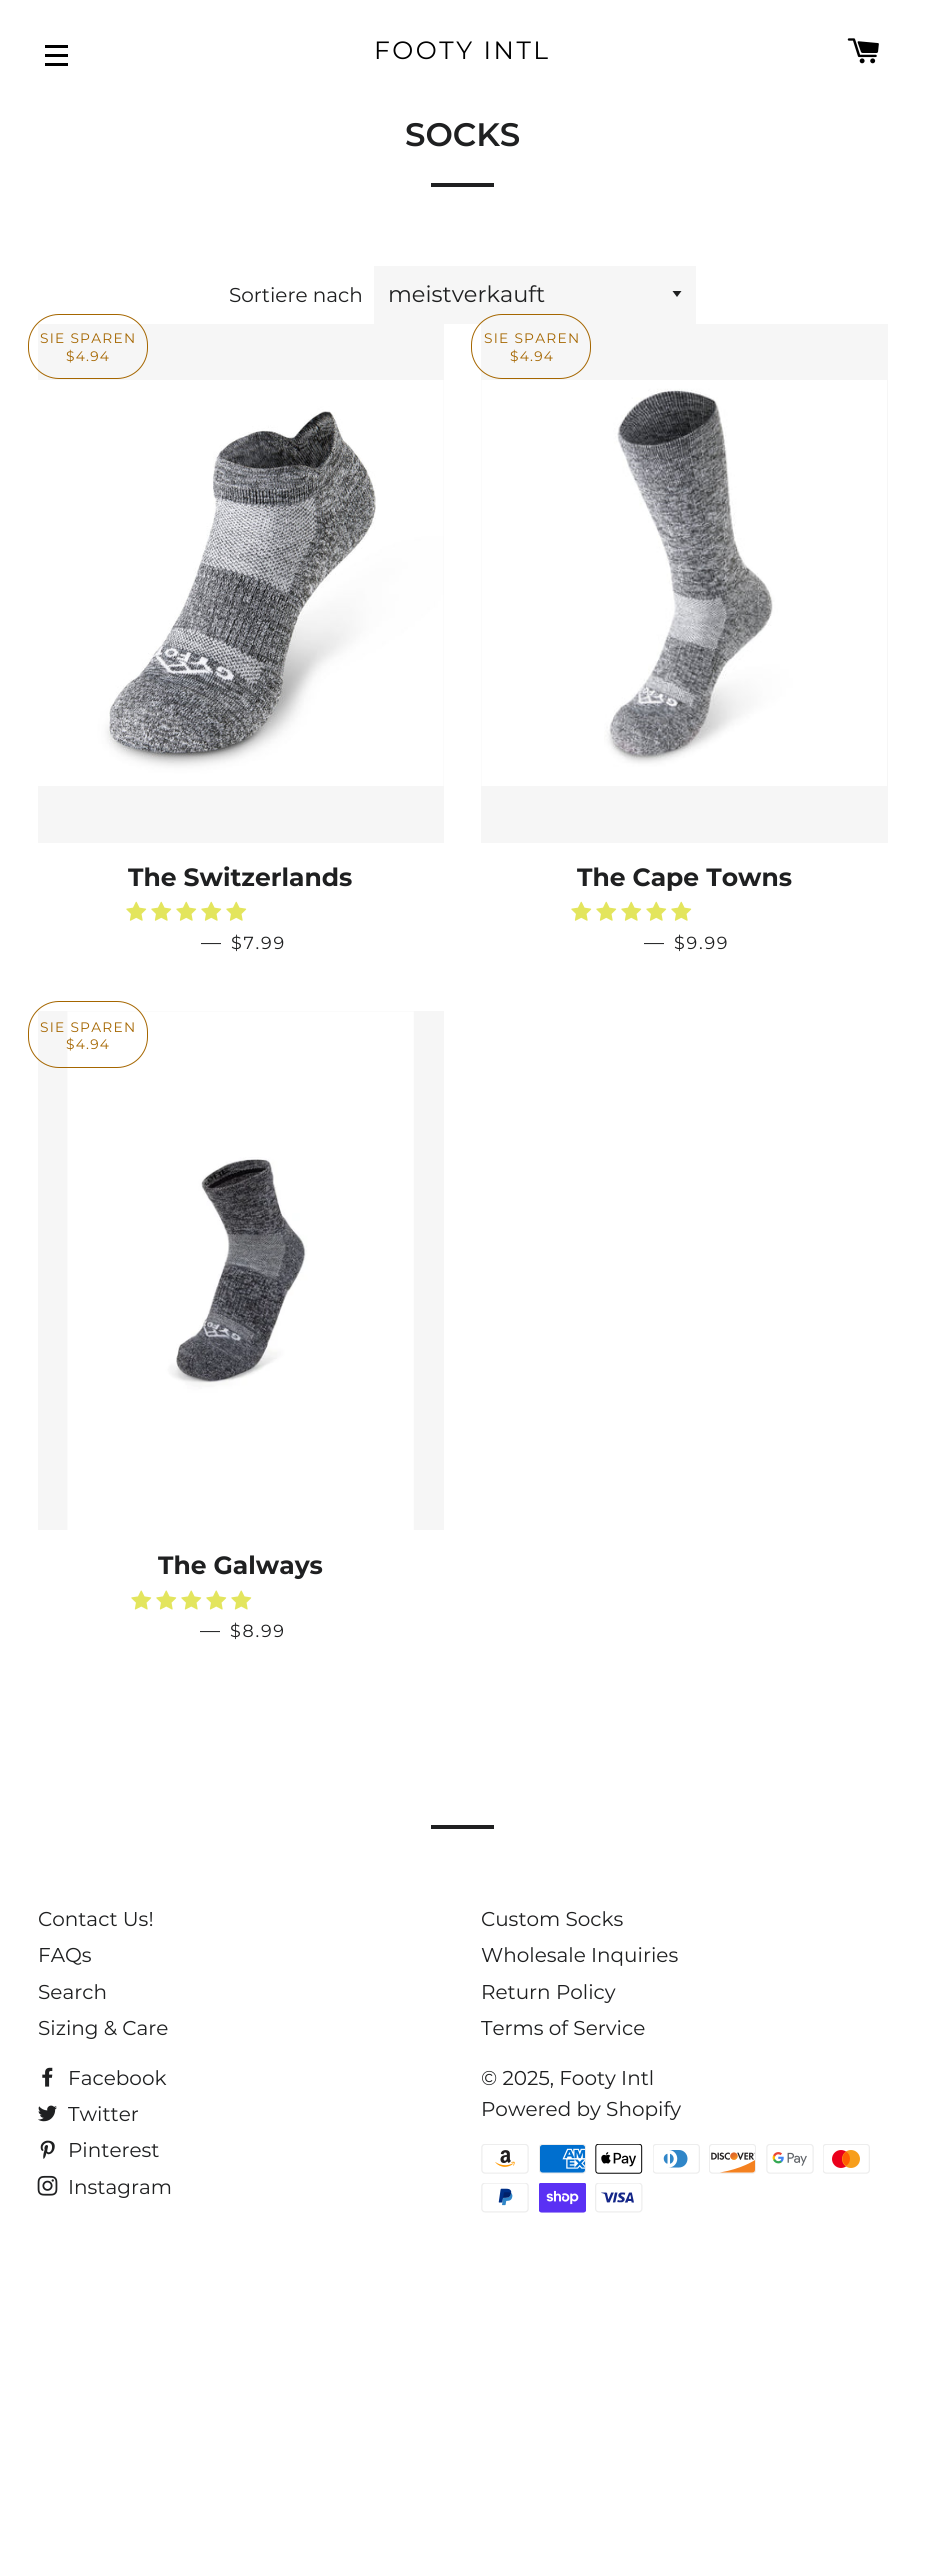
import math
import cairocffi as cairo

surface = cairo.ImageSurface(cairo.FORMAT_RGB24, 925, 2563)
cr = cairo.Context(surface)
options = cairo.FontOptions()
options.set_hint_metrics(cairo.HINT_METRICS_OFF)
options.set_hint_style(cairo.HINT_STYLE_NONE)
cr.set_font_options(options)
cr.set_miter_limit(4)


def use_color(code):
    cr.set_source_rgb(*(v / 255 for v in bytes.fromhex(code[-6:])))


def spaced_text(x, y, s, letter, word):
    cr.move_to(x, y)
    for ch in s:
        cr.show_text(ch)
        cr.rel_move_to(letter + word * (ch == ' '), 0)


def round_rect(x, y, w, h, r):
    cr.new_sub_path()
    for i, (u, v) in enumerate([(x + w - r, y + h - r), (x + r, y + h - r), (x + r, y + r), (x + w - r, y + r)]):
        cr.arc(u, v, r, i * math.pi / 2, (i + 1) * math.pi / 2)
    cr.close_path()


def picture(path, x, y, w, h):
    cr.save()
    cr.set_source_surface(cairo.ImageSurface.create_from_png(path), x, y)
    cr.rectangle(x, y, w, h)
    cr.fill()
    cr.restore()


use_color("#ffffff")
cr.paint()
use_color("#000000")
cr.rectangle(45, 45, 23, 3)
cr.fill()
cr.rectangle(45, 54, 23, 3)
cr.fill()
cr.rectangle(45, 63, 23, 3)
cr.fill()
cr.select_font_face("Montserrat")
cr.set_font_size(25)
spaced_text(374, 59, "FOOTY INTL", 2.5, 0)
picture("img1.png", 847, 38, 32, 26)
cr.select_font_face("Montserrat SemiBold")
cr.set_font_size(32.5)
use_color("#1f2021")
cr.move_to(405, 146)
cr.show_text("SOCKS")
cr.rectangle(431, 183, 63, 4)
cr.fill()
cr.select_font_face("Montserrat")
cr.set_font_size(20)
cr.move_to(229, 302)
cr.show_text("Sortiere nach")
use_color("#f6f6f6")
cr.rectangle(374, 266, 322, 58)
cr.fill()
use_color("#1f2021")
cr.new_path()
cr.move_to(672.5, 291)
cr.line_to(677, 297)
cr.line_to(681.5, 291)
cr.close_path()
cr.fill()
cr.set_font_size(22.5)
cr.move_to(388, 302)
cr.show_text("meistverkauft")
use_color("#f6f6f6")
cr.rectangle(38, 324, 406, 519)
cr.fill()
picture("img2.png", 38, 380, 406, 406)
round_rect(28.5, 314.5, 119, 64, 30.5)
use_color("#a56600")
cr.set_line_width(1)
cr.stroke()
cr.set_font_size(13.75)
spaced_text(40, 343, "SIE SPAREN", 1.25, 0)
spaced_text(66, 361, "$4.94", 1.25, 0)
cr.select_font_face("Montserrat", cairo.FONT_SLANT_NORMAL, cairo.FONT_WEIGHT_BOLD)
cr.set_font_size(25)
use_color("#1f2021")
cr.move_to(128, 886)
cr.show_text("The Switzerlands")
picture("img3.png", 126, 901, 21, 20)
picture("img3.png", 151, 901, 21, 20)
picture("img3.png", 176, 901, 21, 20)
picture("img3.png", 201, 901, 21, 20)
picture("img3.png", 226, 901, 21, 20)
cr.select_font_face("Montserrat")
cr.set_font_size(20)
cr.move_to(201, 949)
cr.show_text("—")
cr.set_font_size(17.5)
spaced_text(231, 949, "$7.99", 1.75, 0)
use_color("#f6f6f6")
cr.rectangle(481, 324, 407, 519)
cr.fill()
picture("img4.png", 481, 380, 406, 406)
round_rect(471.5, 314.5, 119, 64, 30.5)
use_color("#a56600")
cr.stroke()
cr.set_font_size(13.75)
spaced_text(484, 343, "SIE SPAREN", 1.25, 0)
spaced_text(510, 361, "$4.94", 1.25, 0)
cr.select_font_face("Montserrat", cairo.FONT_SLANT_NORMAL, cairo.FONT_WEIGHT_BOLD)
cr.set_font_size(25)
use_color("#1f2021")
cr.move_to(577, 886)
cr.show_text("The Cape Towns")
picture("img3.png", 571, 901, 21, 20)
picture("img3.png", 596, 901, 21, 20)
picture("img3.png", 621, 901, 21, 20)
picture("img3.png", 646, 901, 21, 20)
picture("img3.png", 671, 901, 21, 20)
cr.select_font_face("Montserrat")
cr.set_font_size(20)
cr.move_to(644, 949)
cr.show_text("—")
cr.set_font_size(17.5)
spaced_text(674, 949, "$9.99", 1.75, 0)
use_color("#f6f6f6")
cr.rectangle(38, 1011, 406, 519)
cr.fill()
picture("img5.png", 67, 1011, 347, 519)
round_rect(28.5, 1001.5, 119, 66, 30.5)
use_color("#a56600")
cr.stroke()
cr.set_font_size(13.75)
spaced_text(40, 1032, "SIE SPAREN", 1.25, 0)
spaced_text(66, 1049, "$4.94", 1.25, 0)
cr.select_font_face("Montserrat", cairo.FONT_SLANT_NORMAL, cairo.FONT_WEIGHT_BOLD)
cr.set_font_size(25)
use_color("#1f2021")
cr.move_to(158, 1574)
cr.show_text("The Galways")
picture("img6.png", 131, 1590, 21, 20)
picture("img6.png", 156, 1590, 21, 20)
picture("img6.png", 181, 1590, 21, 20)
picture("img6.png", 206, 1590, 21, 20)
picture("img6.png", 231, 1590, 21, 20)
cr.select_font_face("Montserrat")
cr.set_font_size(20)
cr.move_to(200, 1637)
cr.show_text("—")
cr.set_font_size(17.5)
spaced_text(230, 1637, "$8.99", 1.75, 0)
cr.rectangle(431, 1825, 63, 4)
cr.fill()
cr.set_font_size(20)
cr.move_to(38, 1926)
cr.show_text("Contact Us!")
cr.move_to(38, 1962)
cr.show_text("FAQs")
cr.move_to(38, 1999)
cr.show_text("Search")
cr.move_to(38, 2035)
cr.show_text("Sizing & Care")
cr.move_to(481, 1926)
cr.show_text("Custom Socks")
cr.move_to(481, 1962)
cr.show_text("Wholesale Inquiries")
cr.move_to(481, 1999)
cr.show_text("Return Policy")
cr.move_to(481, 2035)
cr.show_text("Terms of Service")
picture("img7.png", 42, 2067, 11, 20)
cr.move_to(68, 2085)
cr.show_text("Facebook")
picture("img8.png", 38, 2105, 19, 17)
cr.move_to(68, 2121)
cr.show_text("Twitter")
picture("img9.png", 40, 2140, 15, 19)
cr.move_to(68, 2157)
cr.show_text("Pinterest")
picture("img10.png", 37, 2175, 21, 21)
cr.move_to(68, 2194)
cr.show_text("Instagram")
cr.move_to(481, 2085)
cr.show_text("© 2025, Footy Intl")
cr.move_to(481, 2116)
cr.show_text("Powered by Shopify")
picture("img11.png", 481, 2144, 48, 30)
picture("img12.png", 539, 2144, 47, 30)
picture("img13.png", 595, 2144, 48, 30)
picture("img14.png", 653, 2144, 47, 30)
picture("img15.png", 709, 2144, 47, 30)
picture("img16.png", 766, 2144, 48, 30)
picture("img17.png", 823, 2144, 47, 30)
picture("img18.png", 481, 2183, 48, 30)
picture("img19.png", 539, 2183, 47, 30)
picture("img20.png", 595, 2183, 48, 30)
surface.write_to_png("result.png")
